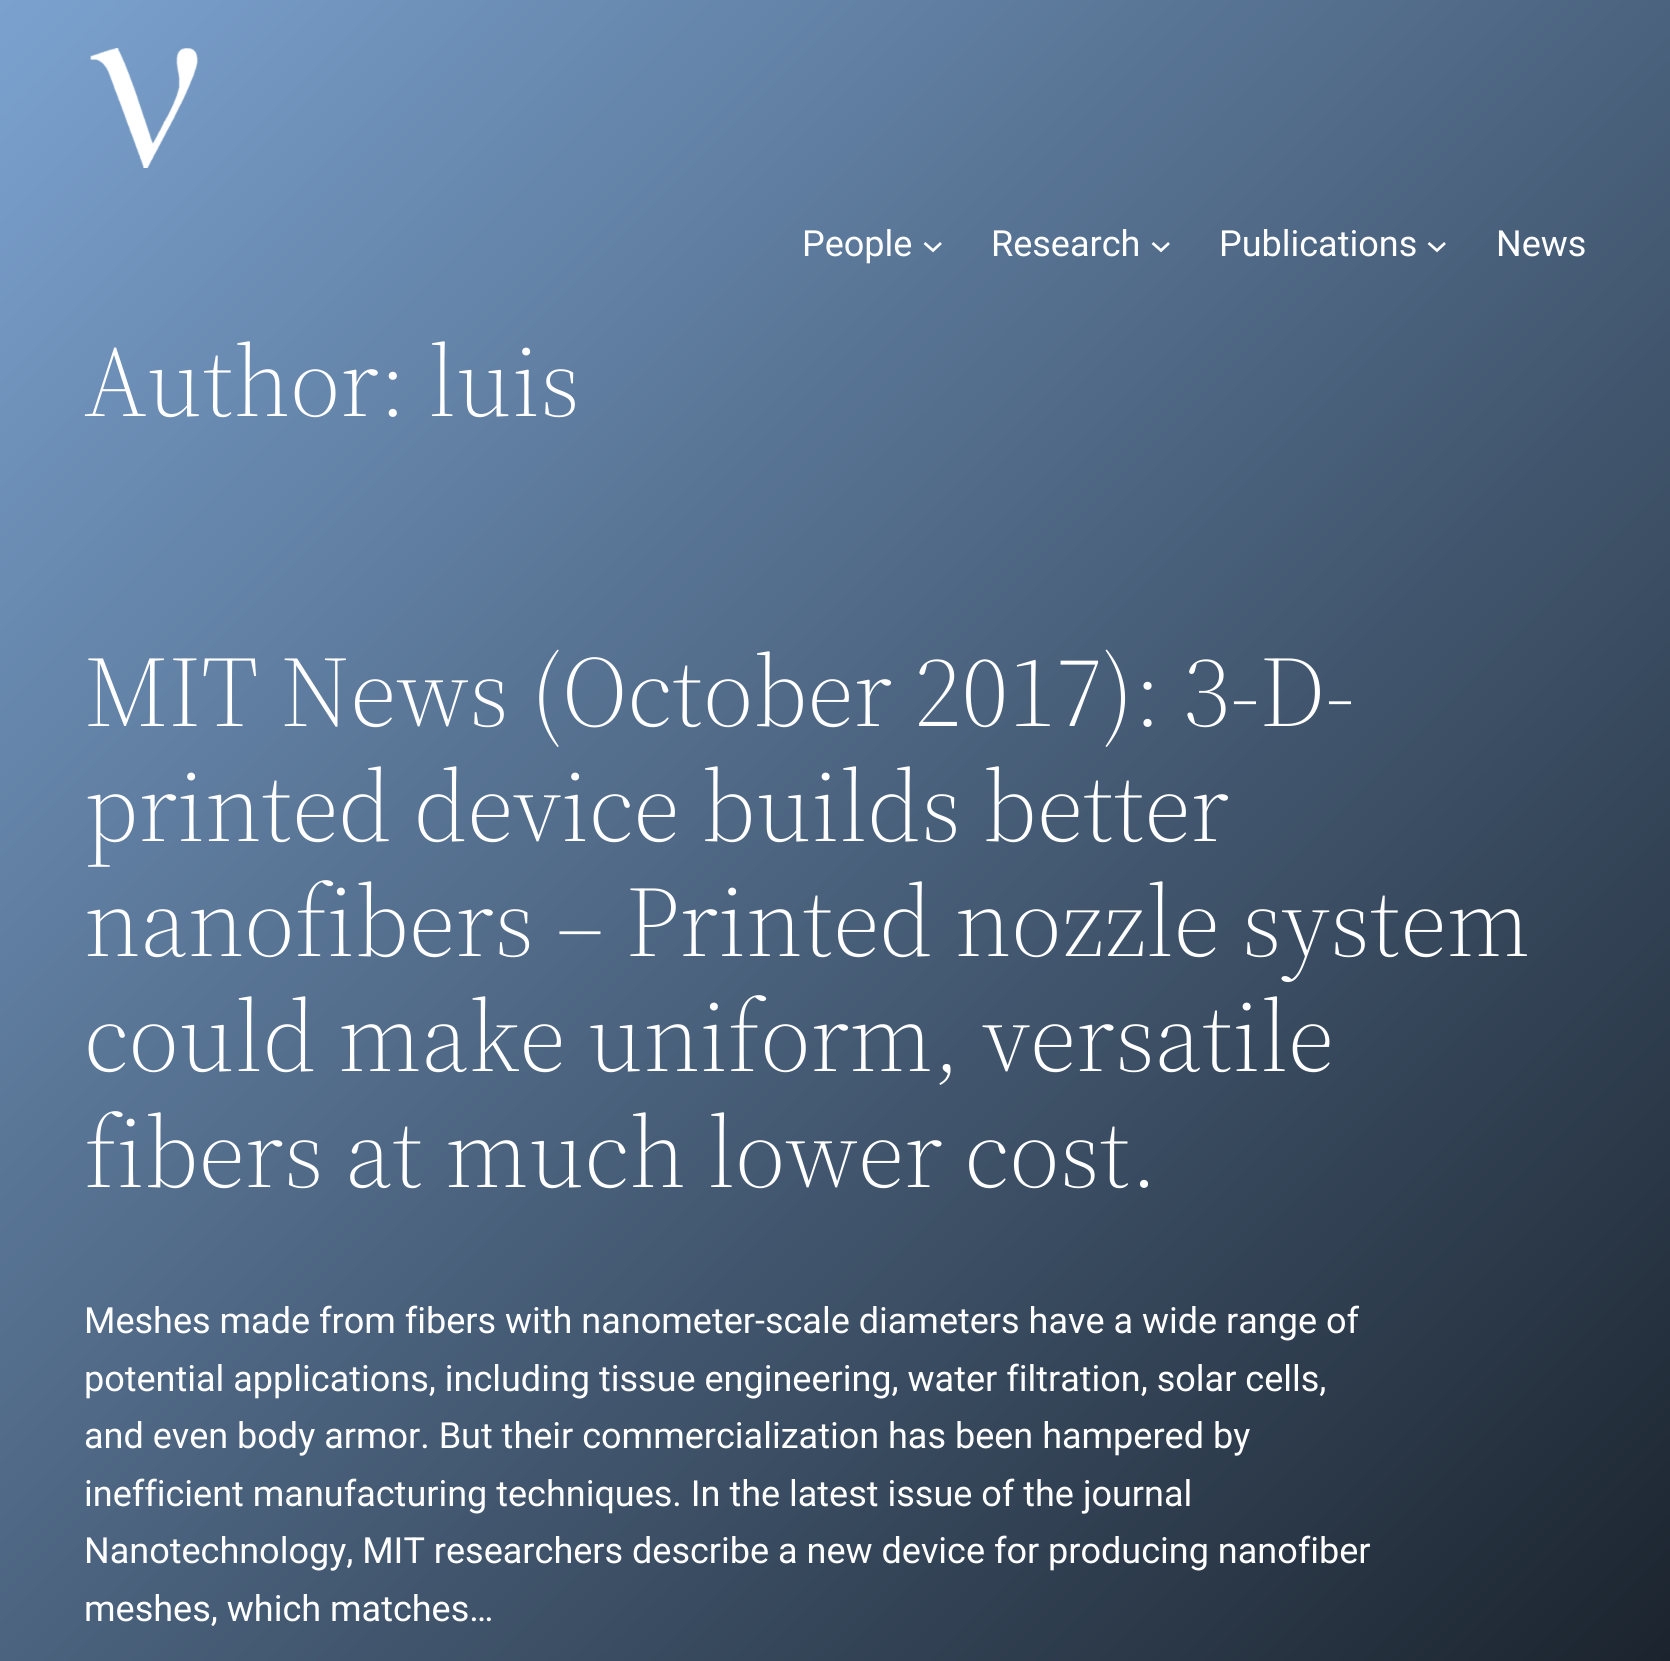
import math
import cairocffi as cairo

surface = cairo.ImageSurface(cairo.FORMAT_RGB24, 1670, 1661)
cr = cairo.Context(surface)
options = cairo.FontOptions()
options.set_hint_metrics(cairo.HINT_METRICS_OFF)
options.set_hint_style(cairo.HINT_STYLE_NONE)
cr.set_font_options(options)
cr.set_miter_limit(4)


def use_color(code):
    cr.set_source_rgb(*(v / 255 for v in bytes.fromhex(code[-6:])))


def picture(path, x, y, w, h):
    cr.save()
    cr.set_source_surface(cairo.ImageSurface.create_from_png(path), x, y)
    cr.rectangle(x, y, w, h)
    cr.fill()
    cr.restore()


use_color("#ffffff")
cr.paint()
gradient = cairo.LinearGradient(-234, 235, 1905, 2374)
gradient.add_color_stop_rgba(0, 0.482, 0.635, 0.812, 1)
gradient.add_color_stop_rgba(1, 0, 0, 0, 1)
cr.set_source(gradient)
cr.rectangle(0, 0, 1670, 1661)
cr.fill()
picture("img1.png", 90, 48, 108, 120)
cr.select_font_face("Roboto")
cr.set_font_size(36)
use_color("#ffffff")
cr.move_to(802, 256)
cr.show_text("People")
cr.new_path()
cr.move_to(924.5, 243)
cr.line_to(933, 250.5)
cr.line_to(941, 243)
cr.set_line_width(2.7)
cr.stroke()
cr.move_to(991, 256)
cr.show_text("Research")
cr.new_path()
cr.move_to(1152.5, 243)
cr.line_to(1161, 250.5)
cr.line_to(1169, 243)
cr.stroke()
cr.move_to(1219, 256)
cr.show_text("Publications")
cr.new_path()
cr.move_to(1428.5, 243)
cr.line_to(1437, 250.5)
cr.line_to(1445, 243)
cr.stroke()
cr.move_to(1496, 256)
cr.show_text("News")
cr.select_font_face("Source Serif 4 Light")
cr.set_font_size(100.25)
cr.move_to(84, 416)
cr.show_text("Author: luis")
cr.move_to(84, 726)
cr.show_text("MIT News (October 2017): 3-D-")
cr.move_to(84, 841)
cr.show_text("printed device builds better")
cr.move_to(84, 956)
cr.show_text("nanofibers – Printed nozzle system")
cr.move_to(84, 1071)
cr.show_text("could make uniform, versatile")
cr.move_to(84, 1187)
cr.show_text("fibers at much lower cost.")
cr.select_font_face("Roboto")
cr.set_font_size(36)
cr.move_to(84, 1333)
cr.show_text("Meshes made from fibers with nanometer-scale diameters have a wide range of")
cr.move_to(84, 1391)
cr.show_text("potential applications, including tissue engineering, water filtration, solar cells,")
cr.move_to(84, 1448)
cr.show_text("and even body armor. But their commercialization has been hampered by")
cr.move_to(84, 1506)
cr.show_text("inefficient manufacturing techniques. In the latest issue of the journal")
cr.move_to(84, 1563)
cr.show_text("Nanotechnology, MIT researchers describe a new device for producing nanofiber")
cr.move_to(84, 1621)
cr.show_text("meshes, which matches…")
surface.write_to_png("result.png")
